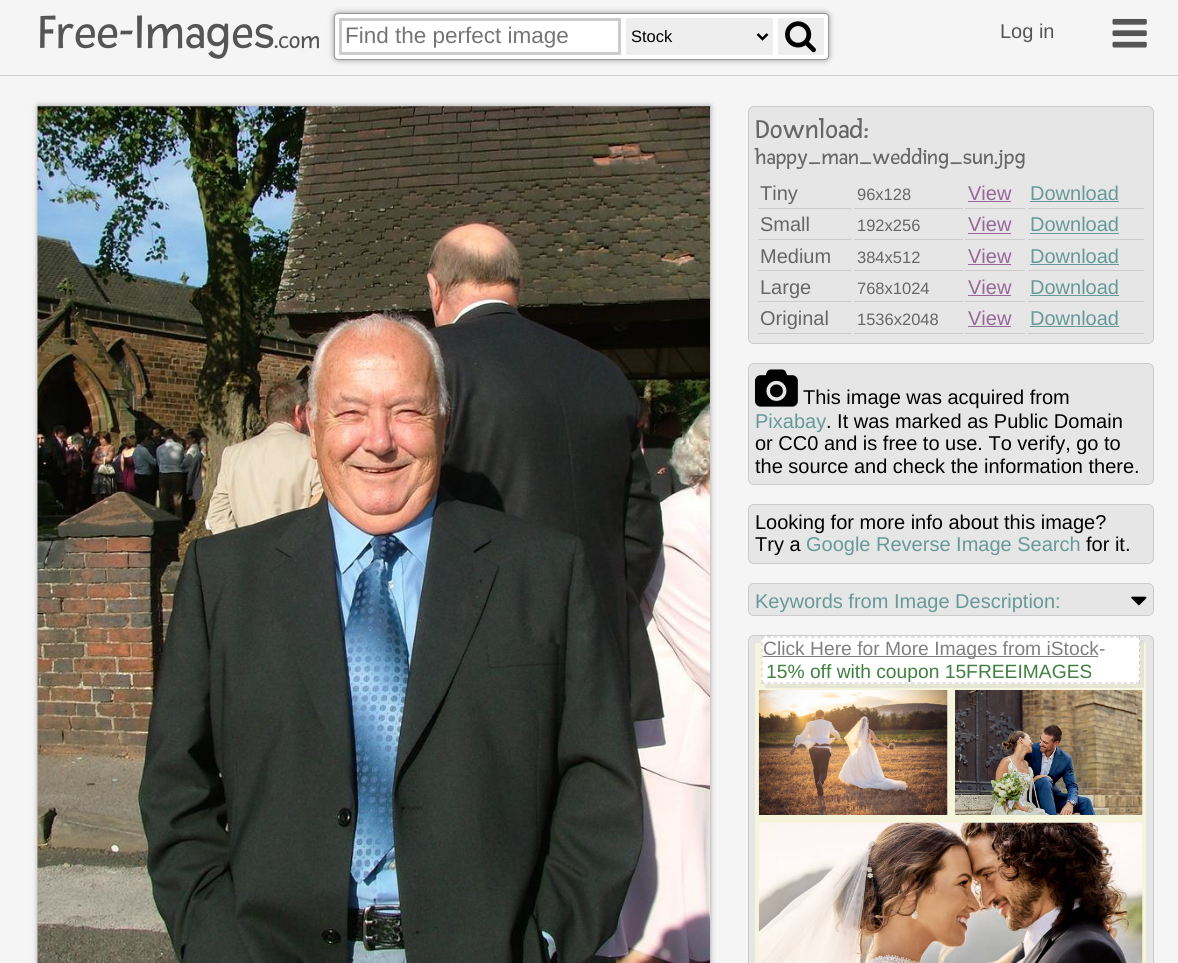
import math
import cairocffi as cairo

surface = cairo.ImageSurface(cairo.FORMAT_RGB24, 1178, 963)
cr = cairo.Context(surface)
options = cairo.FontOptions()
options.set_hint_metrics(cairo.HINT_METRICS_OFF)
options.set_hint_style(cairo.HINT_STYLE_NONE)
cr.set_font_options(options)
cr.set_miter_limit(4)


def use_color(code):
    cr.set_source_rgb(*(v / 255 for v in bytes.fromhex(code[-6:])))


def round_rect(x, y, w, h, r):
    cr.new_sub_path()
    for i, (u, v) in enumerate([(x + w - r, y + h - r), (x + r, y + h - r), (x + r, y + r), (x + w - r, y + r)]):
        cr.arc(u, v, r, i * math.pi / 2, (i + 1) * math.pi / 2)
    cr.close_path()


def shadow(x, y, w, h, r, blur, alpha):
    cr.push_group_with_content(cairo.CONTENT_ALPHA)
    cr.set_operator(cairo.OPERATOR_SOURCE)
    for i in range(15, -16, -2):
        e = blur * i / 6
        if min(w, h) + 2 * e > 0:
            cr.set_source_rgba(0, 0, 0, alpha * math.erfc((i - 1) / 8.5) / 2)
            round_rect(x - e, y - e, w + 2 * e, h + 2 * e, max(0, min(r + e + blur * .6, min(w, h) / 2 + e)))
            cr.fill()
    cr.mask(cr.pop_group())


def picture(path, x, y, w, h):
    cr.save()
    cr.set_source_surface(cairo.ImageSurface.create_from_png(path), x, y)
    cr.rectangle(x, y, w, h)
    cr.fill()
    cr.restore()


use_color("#f5f5f5")
cr.paint()
use_color("#cccccc")
cr.rectangle(0, 75, 1178, 1)
cr.fill()
cr.select_font_face("Fresca")
cr.set_font_size(50)
use_color("#555555")
cr.move_to(38, 48)
cr.show_text("Free-Images")
cr.set_font_size(25)
cr.move_to(274, 48)
cr.show_text(".com")
use_color("#999999")
shadow(334, 13, 495, 47, 4, 3, 1)
use_color("#ffffff")
round_rect(334.5, 13.5, 494, 46, 3.5)
cr.fill_preserve()
use_color("#999999")
cr.set_line_width(1)
cr.stroke()
cr.rectangle(340.5, 19.5, 279, 34)
use_color("#cccccc")
cr.set_line_width(3)
cr.stroke()
cr.select_font_face("Liberation Sans")
cr.set_font_size(22.5)
use_color("#757575")
cr.move_to(345, 43)
cr.show_text("Find the perfect image")
use_color("#eeeeee")
cr.rectangle(626, 18, 147, 37)
cr.fill()
cr.new_path()
cr.move_to(757.5, 34)
cr.line_to(762.5, 39)
cr.line_to(767.5, 34)
use_color("#000000")
cr.set_line_width(2.5)
cr.stroke()
cr.set_font_size(16.5)
cr.move_to(631, 42)
cr.show_text("Stock")
use_color("#eeeeee")
cr.rectangle(778, 18, 46, 37)
cr.fill()
picture("img1.png", 785, 21, 31, 32)
cr.set_font_size(20)
use_color("#555555")
cr.move_to(1000, 38)
cr.show_text("Log in")
picture("img2.png", 1112, 18, 35, 30)
use_color("#999999")
shadow(38, 106, 672, 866, 0, 3, 1)
picture("img3.png", 37, 106, 673, 857)
use_color("#e6e6e6")
round_rect(748.5, 106.5, 405, 237, 5.5)
cr.fill_preserve()
use_color("#cccccc")
cr.set_line_width(1)
cr.stroke()
cr.select_font_face("Fresca")
cr.set_font_size(27.5)
use_color("#666666")
cr.move_to(755, 138)
cr.show_text("Download:")
cr.set_font_size(22)
cr.move_to(755, 164)
cr.show_text("happy_man_wedding_sun.jpg")
use_color("#cccccc")
cr.rectangle(758, 208, 93, 1)
cr.fill()
cr.select_font_face("Liberation Sans")
cr.set_font_size(20)
use_color("#666666")
cr.move_to(760, 200)
cr.show_text("Tiny")
use_color("#cccccc")
cr.rectangle(854, 208, 109, 1)
cr.fill()
cr.set_font_size(16.5)
use_color("#666666")
cr.move_to(857, 200)
cr.show_text("96x128")
use_color("#cccccc")
cr.rectangle(965, 208, 60, 1)
cr.fill()
cr.set_font_size(20)
use_color("#996699")
cr.move_to(968, 200)
cr.show_text("View")
cr.rectangle(968, 201, 43, 1)
cr.fill()
use_color("#cccccc")
cr.rectangle(1028, 208, 116, 1)
cr.fill()
use_color("#669999")
cr.move_to(1030, 200)
cr.show_text("Download")
cr.rectangle(1030, 201, 89, 1)
cr.fill()
use_color("#cccccc")
cr.rectangle(758, 239, 93, 1)
cr.fill()
use_color("#666666")
cr.move_to(760, 231)
cr.show_text("Small")
use_color("#cccccc")
cr.rectangle(854, 239, 109, 1)
cr.fill()
cr.set_font_size(16.5)
use_color("#666666")
cr.move_to(857, 231)
cr.show_text("192x256")
use_color("#cccccc")
cr.rectangle(965, 239, 60, 1)
cr.fill()
cr.set_font_size(20)
use_color("#996699")
cr.move_to(968, 231)
cr.show_text("View")
cr.rectangle(968, 233, 43, 1)
cr.fill()
use_color("#cccccc")
cr.rectangle(1028, 239, 116, 1)
cr.fill()
use_color("#669999")
cr.move_to(1030, 231)
cr.show_text("Download")
cr.rectangle(1030, 233, 89, 1)
cr.fill()
use_color("#cccccc")
cr.rectangle(758, 270, 93, 1)
cr.fill()
use_color("#666666")
cr.move_to(760, 263)
cr.show_text("Medium")
use_color("#cccccc")
cr.rectangle(854, 270, 109, 1)
cr.fill()
cr.set_font_size(16.5)
use_color("#666666")
cr.move_to(857, 263)
cr.show_text("384x512")
use_color("#cccccc")
cr.rectangle(965, 270, 60, 1)
cr.fill()
cr.set_font_size(20)
use_color("#996699")
cr.move_to(968, 263)
cr.show_text("View")
cr.rectangle(968, 264, 43, 1)
cr.fill()
use_color("#cccccc")
cr.rectangle(1028, 270, 116, 1)
cr.fill()
use_color("#669999")
cr.move_to(1030, 263)
cr.show_text("Download")
cr.rectangle(1030, 264, 89, 1)
cr.fill()
use_color("#cccccc")
cr.rectangle(758, 301, 93, 1)
cr.fill()
use_color("#666666")
cr.move_to(760, 294)
cr.show_text("Large")
use_color("#cccccc")
cr.rectangle(854, 301, 109, 1)
cr.fill()
cr.set_font_size(16.5)
use_color("#666666")
cr.move_to(857, 294)
cr.show_text("768x1024")
use_color("#cccccc")
cr.rectangle(965, 301, 60, 1)
cr.fill()
cr.set_font_size(20)
use_color("#996699")
cr.move_to(968, 294)
cr.show_text("View")
cr.rectangle(968, 295, 43, 1)
cr.fill()
use_color("#cccccc")
cr.rectangle(1028, 301, 116, 1)
cr.fill()
use_color("#669999")
cr.move_to(1030, 294)
cr.show_text("Download")
cr.rectangle(1030, 295, 89, 1)
cr.fill()
use_color("#cccccc")
cr.rectangle(758, 333, 93, 1)
cr.fill()
use_color("#666666")
cr.move_to(760, 325)
cr.show_text("Original")
use_color("#cccccc")
cr.rectangle(854, 333, 109, 1)
cr.fill()
cr.set_font_size(16.5)
use_color("#666666")
cr.move_to(857, 325)
cr.show_text("1536x2048")
use_color("#cccccc")
cr.rectangle(965, 333, 60, 1)
cr.fill()
cr.set_font_size(20)
use_color("#996699")
cr.move_to(968, 325)
cr.show_text("View")
cr.rectangle(968, 326, 43, 1)
cr.fill()
use_color("#cccccc")
cr.rectangle(1028, 333, 116, 1)
cr.fill()
use_color("#669999")
cr.move_to(1030, 325)
cr.show_text("Download")
cr.rectangle(1030, 326, 89, 1)
cr.fill()
use_color("#e6e6e6")
round_rect(748.5, 363.5, 405, 121, 5.5)
cr.fill_preserve()
use_color("#cccccc")
cr.stroke()
picture("img4.png", 755, 369, 43, 38)
use_color("#000000")
cr.move_to(803, 404)
cr.show_text("This image was acquired from")
use_color("#669999")
cr.move_to(755, 428)
cr.show_text("Pixabay")
use_color("#000000")
cr.move_to(826, 428)
cr.show_text(". It was marked as Public Domain")
cr.move_to(755, 450)
cr.show_text("or CC0 and is free to use. To verify, go to")
cr.move_to(755, 473)
cr.show_text("the source and check the information there.")
use_color("#e6e6e6")
round_rect(748.5, 504.5, 405, 59, 5.5)
cr.fill_preserve()
use_color("#cccccc")
cr.stroke()
use_color("#000000")
cr.move_to(755, 529)
cr.show_text("Looking for more info about this image?")
cr.move_to(755, 551)
cr.show_text("Try a")
use_color("#669999")
cr.move_to(806, 551)
cr.show_text("Google Reverse Image Search")
use_color("#000000")
cr.move_to(1086, 551)
cr.show_text("for it.")
use_color("#e6e6e6")
round_rect(748.5, 583.5, 405, 32, 5.5)
cr.fill_preserve()
use_color("#cccccc")
cr.stroke()
use_color("#669999")
cr.move_to(755, 608)
cr.show_text("Keywords from Image Description:")
picture("img5.png", 1131, 596, 16, 10)
use_color("#e6e6e6")
round_rect(748.5, 635.5, 405, 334, 5.5)
cr.fill_preserve()
use_color("#cccccc")
cr.stroke()
use_color("#f5f5dc")
cr.rectangle(755, 643, 391, 320)
cr.fill()
cr.set_source_rgba(0.8, 0.8, 0.8, 0.38)
cr.new_path()
cr.move_to(765, 684)
cr.line_to(765, 688)
cr.line_to(1144, 688)
cr.line_to(1144, 640)
cr.line_to(1140, 640)
cr.line_to(1140, 684)
cr.close_path()
cr.fill()
use_color("#ffffff")
cr.rectangle(761, 636, 379, 48)
cr.fill()
cr.new_path()
cr.move_to(761, 637)
cr.line_to(1140, 637)
use_color("#d0d0d0")
cr.set_line_width(1.2)
cr.set_dash([3.75, 2.5])
cr.stroke()
cr.new_path()
cr.move_to(1139.5, 636)
cr.line_to(1139.5, 684)
cr.stroke()
cr.new_path()
cr.move_to(761, 683)
cr.line_to(1140, 683)
cr.stroke()
cr.new_path()
cr.move_to(762, 636)
cr.line_to(762, 684)
cr.stroke()
use_color("#808080")
cr.rectangle(763, 656, 335, 1)
cr.fill()
cr.set_font_size(19.25)
cr.move_to(763, 655)
cr.show_text("Click Here for More Images from iStock-")
use_color("#408040")
cr.move_to(766, 678)
cr.show_text("15% off with coupon 15FREEIMAGES")
picture("img6.png", 758, 690, 190, 125)
picture("img7.png", 955, 690, 188, 125)
picture("img8.png", 758, 822, 385, 141)
surface.write_to_png("result.png")
